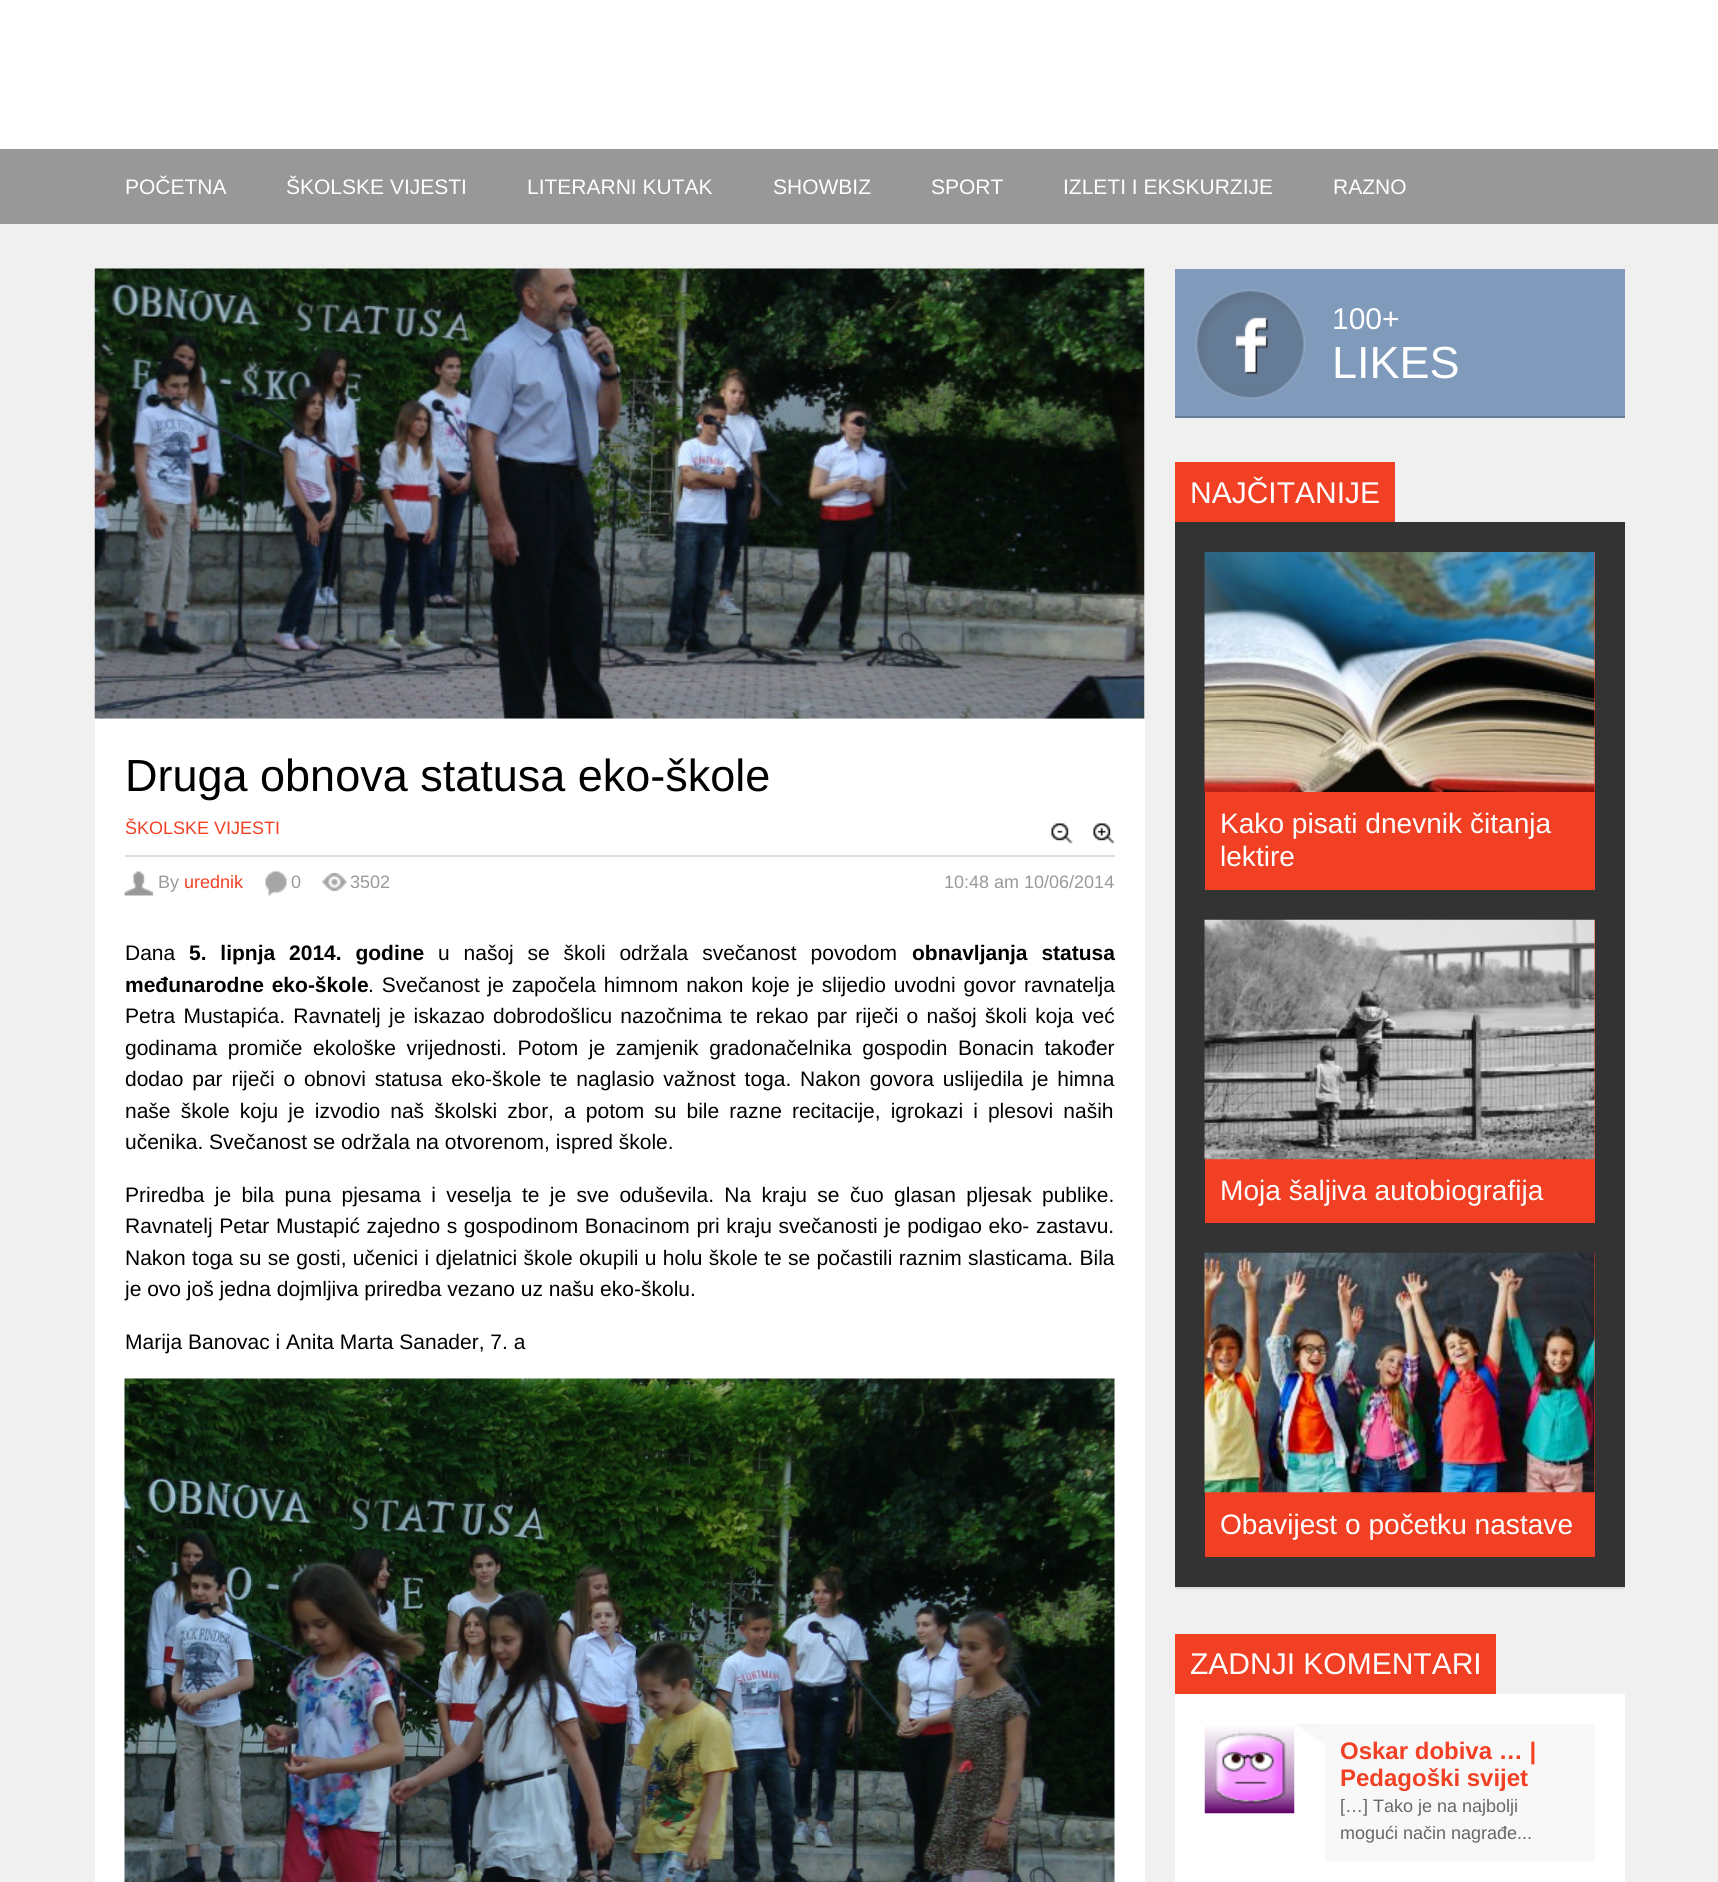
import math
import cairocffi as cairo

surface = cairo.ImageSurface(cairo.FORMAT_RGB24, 1718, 1882)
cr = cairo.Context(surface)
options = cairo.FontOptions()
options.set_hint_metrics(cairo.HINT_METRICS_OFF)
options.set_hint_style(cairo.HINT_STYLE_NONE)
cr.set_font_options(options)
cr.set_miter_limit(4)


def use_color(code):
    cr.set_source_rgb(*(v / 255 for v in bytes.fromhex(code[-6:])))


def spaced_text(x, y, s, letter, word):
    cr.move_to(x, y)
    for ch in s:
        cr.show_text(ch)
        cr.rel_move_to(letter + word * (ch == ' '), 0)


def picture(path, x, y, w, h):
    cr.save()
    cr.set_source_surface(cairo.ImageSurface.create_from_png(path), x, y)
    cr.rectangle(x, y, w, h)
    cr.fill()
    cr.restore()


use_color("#f0f0f0")
cr.paint()
use_color("#ffffff")
cr.rectangle(0, 0, 1718, 149)
cr.fill()
use_color("#989898")
cr.rectangle(0, 149, 1718, 75)
cr.fill()
cr.select_font_face("Liberation Sans")
cr.set_font_size(21)
use_color("#ffffff")
cr.move_to(125, 194)
cr.show_text("POČETNA")
cr.move_to(286, 194)
cr.show_text("ŠKOLSKE VIJESTI")
cr.move_to(527, 194)
cr.show_text("LITERARNI KUTAK")
cr.move_to(773, 194)
cr.show_text("SHOWBIZ")
cr.move_to(931, 194)
cr.show_text("SPORT")
cr.move_to(1063, 194)
cr.show_text("IZLETI I EKSKURZIJE")
cr.move_to(1333, 194)
cr.show_text("RAZNO")
picture("img1.png", 94, 268, 1051, 451)
cr.rectangle(95, 719, 1050, 1163)
cr.fill()
cr.set_font_size(45)
use_color("#000000")
cr.move_to(125, 791)
cr.show_text("Druga obnova statusa eko-škole")
cr.set_font_size(18)
use_color("#f24024")
cr.move_to(125, 834)
cr.show_text("ŠKOLSKE VIJESTI")
picture("img2.png", 1051, 823, 22, 21)
picture("img3.png", 1093, 823, 22, 21)
use_color("#dddddd")
cr.rectangle(125, 855, 990, 2)
cr.fill()
picture("img4.png", 124, 871, 29, 25)
use_color("#999999")
cr.move_to(158, 888)
cr.show_text("By")
use_color("#f24024")
cr.move_to(184, 888)
cr.show_text("urednik")
picture("img5.png", 265, 871, 22, 25)
use_color("#999999")
cr.move_to(291, 888)
cr.show_text("0")
picture("img6.png", 322, 873, 25, 18)
cr.move_to(350, 888)
cr.show_text("3502")
cr.move_to(944, 888)
cr.show_text("10:48 am 10/06/2014")
cr.set_font_size(21)
use_color("#000000")
cr.move_to(125, 960)
cr.show_text("Dana")
cr.select_font_face("Liberation Sans", cairo.FONT_SLANT_NORMAL, cairo.FONT_WEIGHT_BOLD)
spaced_text(189, 960, "5. lipnja 2014. godine", 0, 8)
cr.select_font_face("Liberation Sans")
spaced_text(438, 960, "u našoj se školi održala svečanost povodom", 0, 8)
cr.select_font_face("Liberation Sans", cairo.FONT_SLANT_NORMAL, cairo.FONT_WEIGHT_BOLD)
spaced_text(912, 960, "obnavljanja statusa", 0, 8)
spaced_text(125, 992, "međunarodne eko-škole", 0, 2)
cr.select_font_face("Liberation Sans")
spaced_text(368, 992, ". Svečanost je započela himnom nakon koje je slijedio uvodni govor ravnatelja", 0, 2)
spaced_text(125, 1023, "Petra Mustapića. Ravnatelj je iskazao dobrodošlicu nazočnima te rekao par riječi o našoj školi koja već", 0, 2.4)
spaced_text(125, 1055, "godinama promiče ekološke vrijednosti. Potom je zamjenik gradonačelnika gospodin Bonacin također", 0, 4.75)
spaced_text(125, 1086, "dodao par riječi o obnovi statusa eko-škole te naglasio važnost toga. Nakon govora uslijedila je himna", 0, 3)
spaced_text(125, 1118, "naše škole koju je izvodio naš školski zbor, a potom su bile razne recitacije, igrokazi i plesovi naših", 0, 4.25)
cr.move_to(125, 1149)
cr.show_text("učenika. Svečanost se održala na otvorenom, ispred škole.")
spaced_text(125, 1202, "Priredba je bila puna pjesama i veselja te je sve oduševila. Na kraju se čuo glasan pljesak publike.", 0, 4.5)
spaced_text(125, 1233, "Ravnatelj Petar Mustapić zajedno s gospodinom Bonacinom pri kraju svečanosti je podigao eko- zastavu.", 0, 0.75)
spaced_text(125, 1265, "Nakon toga su se gosti, učenici i djelatnici škole okupili u holu škole te se počastili raznim slasticama. Bila", 0, 0.5)
cr.move_to(125, 1296)
cr.show_text("je ovo još jedna dojmljiva priredba vezano uz našu eko-školu.")
cr.move_to(125, 1349)
cr.show_text("Marija Banovac i Anita Marta Sanader, 7. a")
picture("img7.png", 124, 1378, 991, 504)
use_color("#7f9aba")
cr.rectangle(1175, 269, 450, 147)
cr.fill()
picture("img8.png", 1195, 289, 111, 110)
use_color("#667b95")
cr.rectangle(1175, 416, 450, 2)
cr.fill()
cr.set_font_size(30)
use_color("#ffffff")
cr.move_to(1332, 329)
cr.show_text("100+")
cr.set_font_size(45)
cr.move_to(1332, 378)
cr.show_text("LIKES")
use_color("#f24024")
cr.rectangle(1175, 462, 220, 60)
cr.fill()
cr.set_font_size(30)
use_color("#ffffff")
cr.move_to(1190, 503)
cr.show_text("NAJČITANIJE")
use_color("#333333")
cr.rectangle(1175, 522, 450, 1065)
cr.fill()
use_color("#dddddd")
cr.rectangle(1175, 1587, 450, 2)
cr.fill()
use_color("#f24024")
cr.rectangle(1205, 552, 390, 338)
cr.fill()
picture("img9.png", 1204, 552, 391, 240)
cr.set_font_size(28.1)
use_color("#ffffff")
cr.move_to(1220, 833)
cr.show_text("Kako pisati dnevnik čitanja")
cr.move_to(1220, 866)
cr.show_text("lektire")
use_color("#f24024")
cr.rectangle(1205, 920, 390, 303)
cr.fill()
picture("img10.png", 1204, 919, 391, 241)
use_color("#ffffff")
cr.move_to(1220, 1200)
cr.show_text("Moja šaljiva autobiografija")
use_color("#f24024")
cr.rectangle(1205, 1253, 390, 304)
cr.fill()
picture("img11.png", 1204, 1252, 391, 241)
use_color("#ffffff")
cr.move_to(1220, 1534)
cr.show_text("Obavijest o početku nastave")
use_color("#f24024")
cr.rectangle(1175, 1634, 321, 60)
cr.fill()
cr.set_font_size(30)
use_color("#ffffff")
cr.move_to(1190, 1674)
cr.show_text("ZADNJI KOMENTARI")
cr.rectangle(1175, 1694, 450, 188)
cr.fill()
picture("img12.png", 1204, 1726, 91, 88)
picture("img13.png", 1295, 1723, 30, 21)
use_color("#f8f8f8")
cr.rectangle(1325, 1724, 270, 138)
cr.fill()
cr.select_font_face("Liberation Sans", cairo.FONT_SLANT_NORMAL, cairo.FONT_WEIGHT_BOLD)
cr.set_font_size(24)
use_color("#f24024")
cr.move_to(1340, 1759)
cr.show_text("Oskar dobiva … |")
cr.move_to(1340, 1786)
cr.show_text("Pedagoški svijet")
cr.select_font_face("Liberation Sans")
cr.set_font_size(18)
use_color("#666666")
cr.move_to(1340, 1812)
cr.show_text("[…] Tako je na najbolji")
cr.move_to(1340, 1839)
cr.show_text("mogući način nagrađe...")
surface.write_to_png("result.png")
